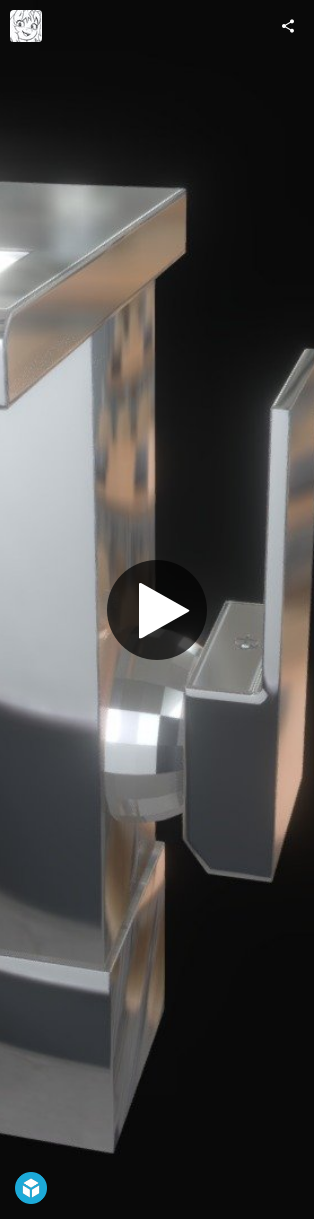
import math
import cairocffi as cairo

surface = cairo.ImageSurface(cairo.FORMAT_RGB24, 314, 1219)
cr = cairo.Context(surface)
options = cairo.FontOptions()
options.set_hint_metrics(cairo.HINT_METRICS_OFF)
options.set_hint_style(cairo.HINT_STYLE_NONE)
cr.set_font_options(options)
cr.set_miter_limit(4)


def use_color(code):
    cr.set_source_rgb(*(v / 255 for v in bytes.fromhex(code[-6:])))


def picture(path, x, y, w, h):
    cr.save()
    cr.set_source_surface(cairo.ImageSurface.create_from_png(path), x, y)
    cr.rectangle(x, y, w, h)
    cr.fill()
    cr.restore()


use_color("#ffffff")
cr.paint()
picture("img1.png", 0, 0, 314, 1219)
cr.set_source_rgba(0, 0, 0, 0.7)
cr.arc(157, 610, 50, 0, 2 * math.pi)
cr.fill()
use_color("#ffffff")
cr.new_path()
cr.move_to(188, 612)
cr.line_to(149, 634)
cr.curve_to(148, 634, 141, 640, 139, 638)
cr.line_to(139, 584)
cr.curve_to(139, 583, 140, 583, 141, 583)
cr.line_to(189, 610)
cr.curve_to(190, 611, 189, 611, 188, 612)
cr.close_path()
cr.fill()
picture("img2.png", 15, 1172, 32, 32)
picture("img3.png", 10, 10, 32, 32)
picture("img4.png", 282, 19, 12, 14)
surface.write_to_png("result.png")
